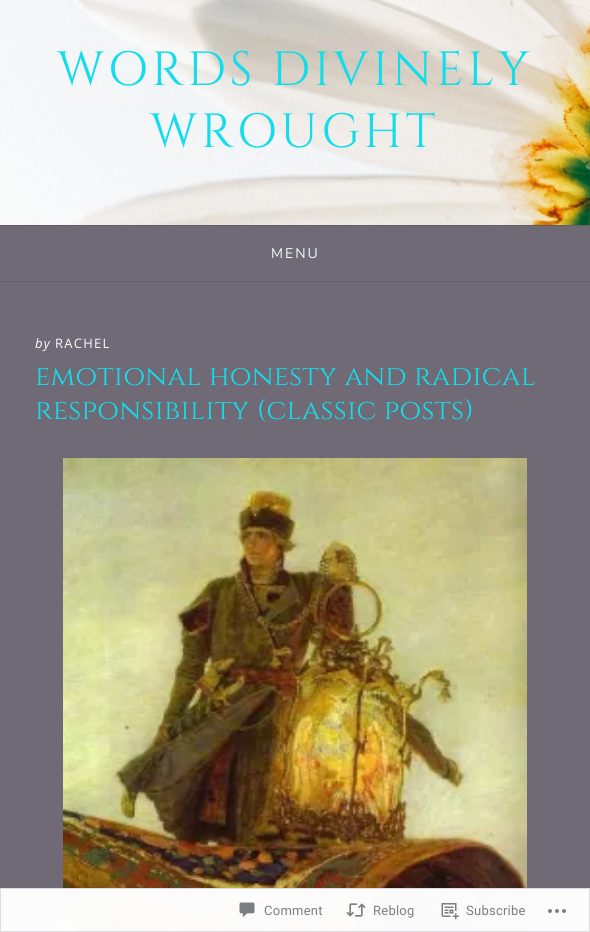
import math
import cairocffi as cairo

surface = cairo.ImageSurface(cairo.FORMAT_RGB24, 590, 932)
cr = cairo.Context(surface)
options = cairo.FontOptions()
options.set_hint_metrics(cairo.HINT_METRICS_OFF)
options.set_hint_style(cairo.HINT_STYLE_NONE)
cr.set_font_options(options)
cr.set_miter_limit(4)


def use_color(code):
    cr.set_source_rgb(*(v / 255 for v in bytes.fromhex(code[-6:])))


def spaced_text(x, y, s, letter, word):
    cr.move_to(x, y)
    for ch in s:
        cr.show_text(ch)
        cr.rel_move_to(letter + word * (ch == ' '), 0)


def picture(path, x, y, w, h):
    cr.save()
    cr.set_source_surface(cairo.ImageSurface.create_from_png(path), x, y)
    cr.rectangle(x, y, w, h)
    cr.fill()
    cr.restore()


use_color("#6f6a75")
cr.paint()
picture("img1.png", 0, 0, 590, 225)
cr.select_font_face("Cinzel")
cr.set_font_size(48)
use_color("#13ddeb")
spaced_text(57, 85, "WORDS DIVINELY", 3.5, 0)
spaced_text(150, 147, "WROUGHT", 3.5, 0)
use_color("#625e68")
cr.rectangle(0, 225, 590, 1)
cr.fill()
cr.rectangle(0, 281, 590, 1)
cr.fill()
cr.select_font_face("Nunito")
cr.set_font_size(14)
use_color("#f6fbfd")
spaced_text(271, 258, "MENU", 2, 0)
cr.select_font_face("Open Sans", cairo.FONT_SLANT_ITALIC)
cr.set_font_size(13)
use_color("#fcfcfc")
spaced_text(35, 348, "by", 1.25, 0)
cr.select_font_face("Open Sans")
spaced_text(55, 348, "RACHEL", 1.25, 0)
cr.select_font_face("Cinzel")
cr.set_font_size(28)
use_color("#13ddeb")
spaced_text(35, 385, "emotional honesty and radical", 0.25, 0)
spaced_text(35, 419, "responsibility (classic posts)", 0.25, 0)
picture("img2.png", 63, 458, 464, 474)
cr.set_source_rgba(1, 1, 1, 0.98)
cr.rectangle(0, 888, 590, 44)
cr.fill()
cr.rectangle(0.5, 888.5, 589, 43)
cr.set_source_rgba(0.863, 0.863, 0.871, 0.98)
cr.set_line_width(1)
cr.stroke()
picture("img3.png", 239, 902, 16, 16)
cr.select_font_face("Roboto")
cr.set_font_size(13)
use_color("#7b7f84")
spaced_text(264, 915, "Comment", 0.25, 0)
picture("img4.png", 346, 903, 20, 14)
spaced_text(373, 915, "Reblog", 0.25, 0)
picture("img5.png", 441, 903, 18, 17)
spaced_text(466, 915, "Subscribe", 0.25, 0)
picture("img6.png", 548, 909, 18, 4)
surface.write_to_png("result.png")
